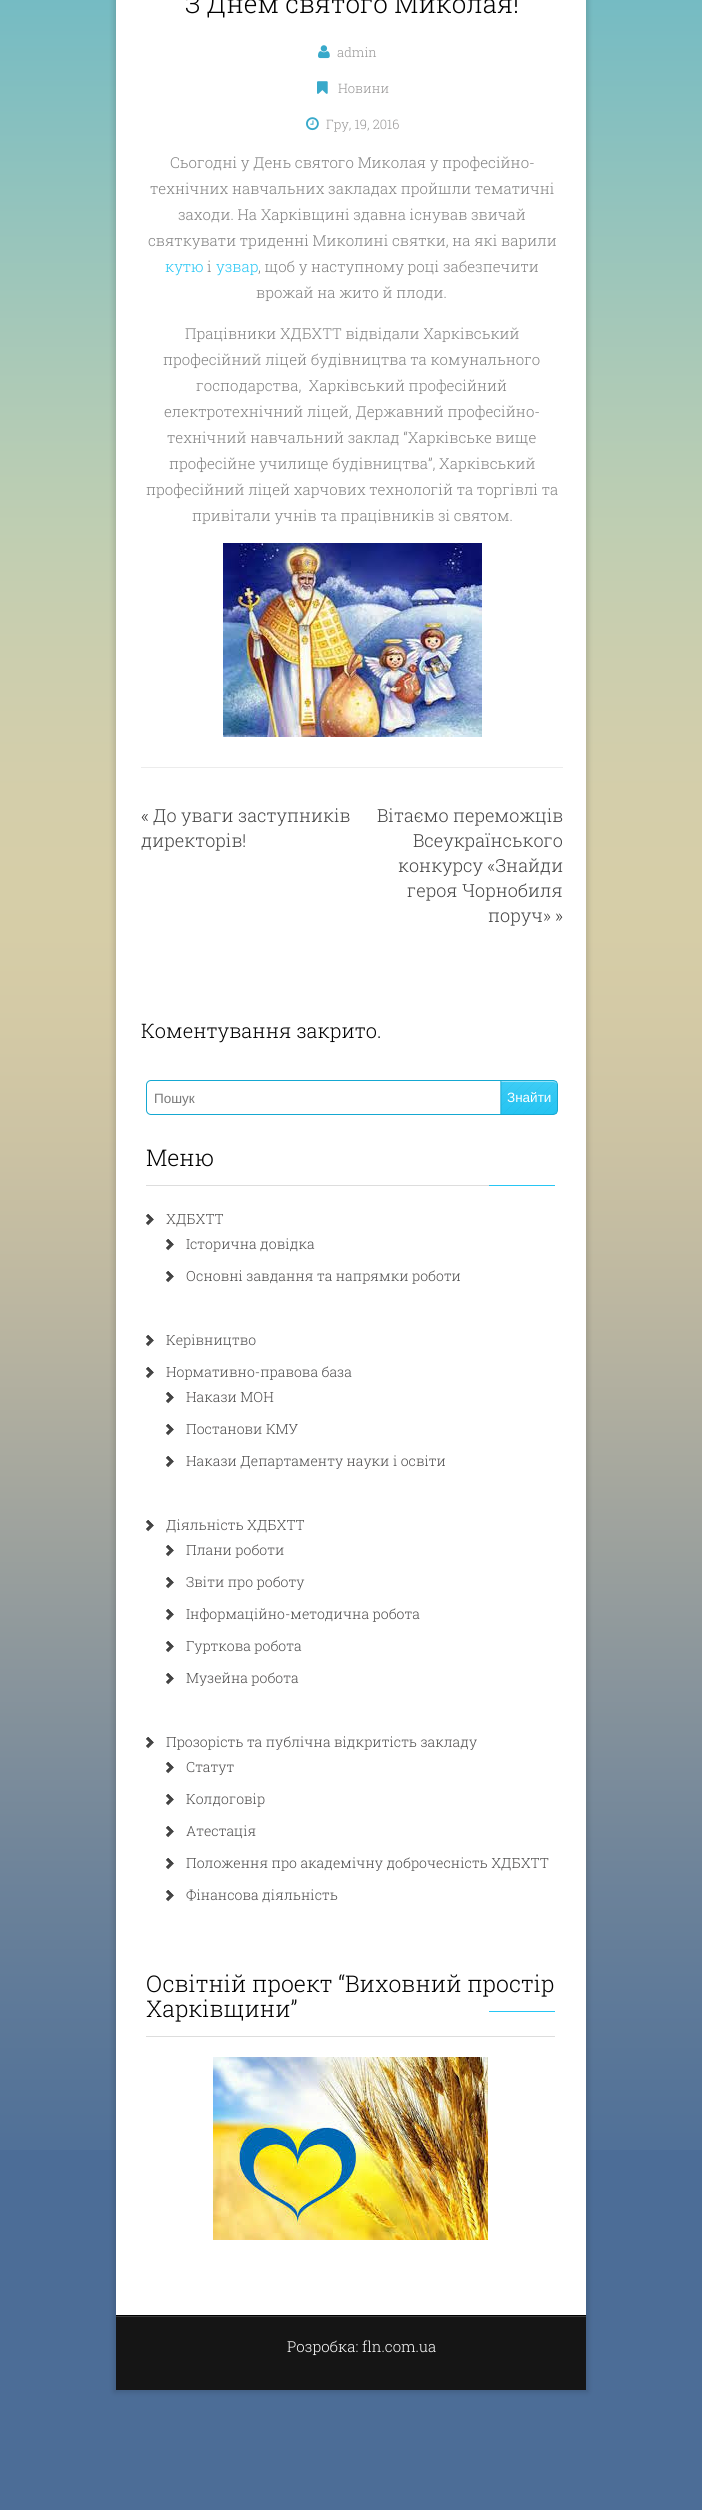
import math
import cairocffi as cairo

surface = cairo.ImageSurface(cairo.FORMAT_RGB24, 702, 2510)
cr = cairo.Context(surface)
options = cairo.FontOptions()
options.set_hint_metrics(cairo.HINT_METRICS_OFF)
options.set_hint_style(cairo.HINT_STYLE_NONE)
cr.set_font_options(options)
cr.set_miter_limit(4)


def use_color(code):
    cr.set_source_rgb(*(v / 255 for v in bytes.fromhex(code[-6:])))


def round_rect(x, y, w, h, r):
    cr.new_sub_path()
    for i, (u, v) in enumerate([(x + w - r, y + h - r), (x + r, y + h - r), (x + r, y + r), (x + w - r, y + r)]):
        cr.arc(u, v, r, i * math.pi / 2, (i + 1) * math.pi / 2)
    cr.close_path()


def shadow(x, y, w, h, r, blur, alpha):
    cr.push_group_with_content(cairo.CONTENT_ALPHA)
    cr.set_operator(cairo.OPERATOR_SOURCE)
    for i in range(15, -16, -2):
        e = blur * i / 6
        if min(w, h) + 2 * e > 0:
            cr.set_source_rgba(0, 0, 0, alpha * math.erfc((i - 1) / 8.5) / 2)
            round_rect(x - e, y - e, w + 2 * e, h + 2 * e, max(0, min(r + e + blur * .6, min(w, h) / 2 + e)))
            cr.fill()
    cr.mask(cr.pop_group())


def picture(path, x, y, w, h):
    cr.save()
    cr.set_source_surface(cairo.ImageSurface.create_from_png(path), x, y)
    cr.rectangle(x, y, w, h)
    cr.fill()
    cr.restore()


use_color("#4c6d97")
cr.paint()
picture("img1.png", 0, 0, 702, 2150)
use_color("#000000")
shadow(114, -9, 474, 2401, 0, 3, 0.15)
use_color("#ffffff")
cr.rectangle(116, 0, 470, 2315)
cr.fill()
use_color("#ececec")
cr.rectangle(141, 767, 422, 1)
cr.fill()
cr.select_font_face("Roboto Slab Light")
cr.set_font_size(26)
use_color("#010101")
cr.move_to(185, 13)
cr.show_text("З Днем святого Миколая!")
picture("img2.png", 318, 45, 12, 14)
cr.set_font_size(13)
use_color("#979696")
cr.move_to(337, 57)
cr.show_text("admin")
picture("img3.png", 317, 81, 11, 13)
cr.move_to(338, 93)
cr.show_text("Новини")
picture("img4.png", 306, 117, 13, 14)
cr.move_to(326, 129)
cr.show_text("Гру, 19, 2016")
cr.set_font_size(15)
use_color("#828282")
cr.move_to(170, 168)
cr.show_text("Сьогодні у День святого Миколая у професійно-")
cr.move_to(150, 194)
cr.show_text("технічних навчальних закладах пройшли тематичні")
cr.move_to(178, 220)
cr.show_text("заходи. На Харківщині здавна існував звичай")
cr.move_to(148, 246)
cr.show_text("святкувати триденні Миколині святки, на які варили")
use_color("#27c6f4")
cr.move_to(165, 272)
cr.show_text("кутю")
use_color("#828282")
cr.move_to(207, 272)
cr.show_text("і")
use_color("#27c6f4")
cr.move_to(216, 272)
cr.show_text("узвар")
use_color("#828282")
cr.move_to(258, 272)
cr.show_text(", щоб у наступному році забезпечити")
cr.move_to(256, 298)
cr.show_text("врожай на жито й плоди.")
cr.move_to(185, 339)
cr.show_text("Працівники ХДБХТТ відвідали Харківський")
cr.move_to(163, 365)
cr.show_text("професійний ліцей будівництва та комунального")
cr.move_to(196, 391)
cr.show_text("господарства,  Харківський професійний")
cr.move_to(164, 417)
cr.show_text("електротехнічний ліцей, Державний професійно-")
cr.move_to(167, 443)
cr.show_text("технічний навчальний заклад “Харківське вище")
cr.move_to(169, 469)
cr.show_text("професійне училище будівництва”, Харківський")
cr.move_to(146, 495)
cr.show_text("професійний ліцей харчових технологій та торгівлі та")
cr.move_to(192, 521)
cr.show_text("привітали учнів та працівників зі святом.")
picture("img5.png", 223, 543, 259, 194)
cr.set_font_size(18)
use_color("#373636")
cr.move_to(141, 822)
cr.show_text("«")
use_color("#444444")
cr.move_to(153, 822)
cr.show_text("До уваги заступників")
cr.move_to(141, 847)
cr.show_text("директорів!")
cr.move_to(377, 822)
cr.show_text("Вітаємо переможців")
cr.move_to(413, 847)
cr.show_text("Всеукраїнського")
cr.move_to(398, 872)
cr.show_text("конкурсу «Знайди")
cr.move_to(407, 897)
cr.show_text("героя Чорнобиля")
cr.move_to(488, 922)
cr.show_text("поруч»")
use_color("#373636")
cr.move_to(555, 922)
cr.show_text("»")
cr.set_font_size(20)
use_color("#010101")
cr.move_to(141, 1038)
cr.show_text("Коментування закрито.")
round_rect(146.5, 1080.5, 411, 34, 4.5)
use_color("#15a8d2")
cr.set_line_width(1)
cr.stroke()
cr.select_font_face("Liberation Sans")
cr.set_font_size(13.5)
use_color("#787878")
cr.move_to(154, 1103)
cr.show_text("Пошук")
picture("img6.png", 500, 1081, 57, 33)
use_color("#ffffff")
cr.move_to(507, 1102)
cr.show_text("Знайти")
use_color("#dddddd")
cr.rectangle(146, 1185, 343, 1)
cr.fill()
cr.select_font_face("Roboto Slab Light")
cr.set_font_size(23)
use_color("#010101")
cr.move_to(146, 1166)
cr.show_text("Меню")
use_color("#27c6f4")
cr.rectangle(489, 1185, 66, 1)
cr.fill()
picture("img7.png", 146, 1214, 8, 12)
cr.set_font_size(14)
use_color("#4d4c4c")
cr.move_to(166, 1224)
cr.show_text("ХДБХТТ")
picture("img7.png", 166, 1239, 8, 12)
cr.move_to(186, 1249)
cr.show_text("Історична довідка")
picture("img7.png", 166, 1271, 8, 12)
cr.move_to(186, 1281)
cr.show_text("Основні завдання та напрямки роботи")
picture("img7.png", 146, 1335, 8, 12)
cr.move_to(166, 1345)
cr.show_text("Керівництво")
picture("img7.png", 146, 1367, 8, 12)
cr.move_to(166, 1377)
cr.show_text("Нормативно-правова база")
picture("img7.png", 166, 1392, 8, 12)
cr.move_to(186, 1402)
cr.show_text("Накази МОН")
picture("img7.png", 166, 1424, 8, 12)
cr.move_to(186, 1434)
cr.show_text("Постанови КМУ")
picture("img7.png", 166, 1456, 8, 12)
cr.move_to(186, 1466)
cr.show_text("Накази Департаменту науки і освіти")
picture("img7.png", 146, 1520, 8, 12)
cr.move_to(166, 1530)
cr.show_text("Діяльність ХДБХТТ")
picture("img7.png", 166, 1545, 8, 12)
cr.move_to(186, 1555)
cr.show_text("Плани роботи")
picture("img7.png", 166, 1577, 8, 12)
cr.move_to(186, 1587)
cr.show_text("Звіти про роботу")
picture("img7.png", 166, 1609, 8, 12)
cr.move_to(186, 1619)
cr.show_text("Інформаційно-методична робота")
picture("img7.png", 166, 1641, 8, 12)
cr.move_to(186, 1651)
cr.show_text("Гурткова робота")
picture("img7.png", 166, 1673, 8, 12)
cr.move_to(186, 1683)
cr.show_text("Музейна робота")
picture("img7.png", 146, 1737, 8, 12)
cr.move_to(166, 1747)
cr.show_text("Прозорість та публічна відкритість закладу")
picture("img7.png", 166, 1762, 8, 12)
cr.move_to(186, 1772)
cr.show_text("Статут")
picture("img7.png", 166, 1794, 8, 12)
cr.move_to(186, 1804)
cr.show_text("Колдоговір")
picture("img7.png", 166, 1826, 8, 12)
cr.move_to(186, 1836)
cr.show_text("Атестація")
picture("img7.png", 166, 1858, 8, 12)
cr.move_to(186, 1868)
cr.show_text("Положення про академічну доброчесність ХДБХТТ")
picture("img7.png", 166, 1890, 8, 12)
cr.move_to(186, 1900)
cr.show_text("Фінансова діяльність")
use_color("#dddddd")
cr.rectangle(146, 2036, 409, 1)
cr.fill()
cr.set_font_size(23)
use_color("#010101")
cr.move_to(146, 1992)
cr.show_text("Освітній проект “Виховний простір")
cr.move_to(146, 2017)
cr.show_text("Харківщини”")
use_color("#27c6f4")
cr.rectangle(489, 2011, 66, 1)
cr.fill()
picture("img8.png", 213, 2057, 275, 183)
use_color("#000000")
cr.rectangle(116, 2315, 470, 1)
cr.fill()
use_color("#151515")
cr.rectangle(116, 2317, 470, 73)
cr.fill()
use_color("#3d3c3c")
cr.rectangle(116, 2316, 470, 1)
cr.fill()
cr.set_font_size(15)
use_color("#ffffff")
cr.move_to(287, 2352)
cr.show_text("Розробка: fln.com.ua")
surface.write_to_png("result.png")
